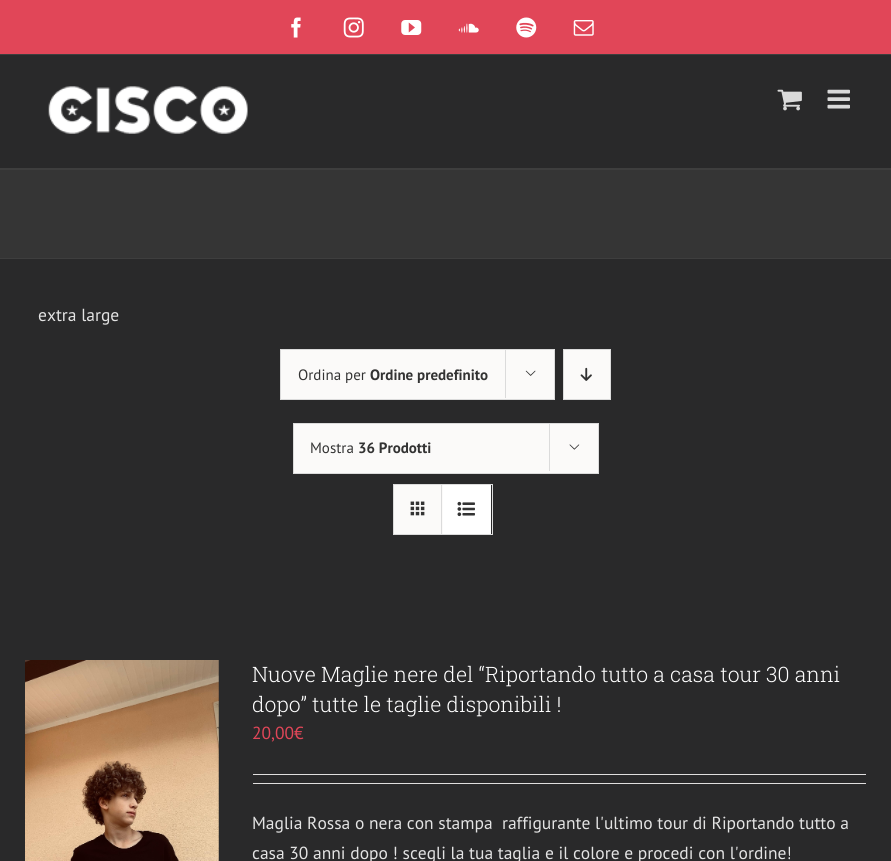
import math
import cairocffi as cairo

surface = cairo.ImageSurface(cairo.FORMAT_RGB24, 891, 861)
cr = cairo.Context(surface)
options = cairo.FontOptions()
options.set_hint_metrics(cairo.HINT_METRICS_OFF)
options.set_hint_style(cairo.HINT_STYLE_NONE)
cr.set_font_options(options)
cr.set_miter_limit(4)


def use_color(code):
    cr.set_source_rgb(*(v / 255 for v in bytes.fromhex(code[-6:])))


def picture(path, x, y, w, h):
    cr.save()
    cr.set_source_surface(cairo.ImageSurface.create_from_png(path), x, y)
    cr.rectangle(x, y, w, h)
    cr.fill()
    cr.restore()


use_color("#353535")
cr.paint()
use_color("#e14658")
cr.rectangle(0, 0, 891, 54)
cr.fill()
use_color("#3e3e3e")
cr.rectangle(0, 54, 891, 1)
cr.fill()
picture("img1.png", 291, 17, 10, 21)
picture("img2.png", 343, 17, 21, 21)
picture("img3.png", 401, 20, 21, 15)
picture("img4.png", 458, 23, 21, 10)
picture("img5.png", 516, 17, 21, 21)
picture("img6.png", 573, 20, 21, 16)
use_color("#29292a")
cr.rectangle(0, 55, 891, 113)
cr.fill()
picture("img7.png", 48, 86, 200, 48)
picture("img8.png", 777, 89, 25, 22)
picture("img9.png", 827, 89, 23, 20)
use_color("#3e3e3e")
cr.rectangle(0, 168, 891, 2)
cr.fill()
cr.rectangle(0, 258, 891, 1)
cr.fill()
use_color("#29292a")
cr.rectangle(0, 259, 891, 602)
cr.fill()
cr.select_font_face("PT Sans")
cr.set_font_size(17.5)
use_color("#e3e3e3")
cr.move_to(38, 321)
cr.show_text("extra large")
use_color("#fbfaf9")
cr.rectangle(280.5, 349.5, 274, 50)
cr.fill_preserve()
use_color("#dbdbdb")
cr.set_line_width(1)
cr.stroke()
cr.set_font_size(15)
use_color("#333333")
cr.move_to(298, 380)
cr.show_text("Ordina per")
cr.select_font_face("PT Sans", cairo.FONT_SLANT_NORMAL, cairo.FONT_WEIGHT_BOLD)
cr.move_to(370, 380)
cr.show_text("Ordine predefinito")
use_color("#dbdbdb")
cr.rectangle(505, 349, 1, 49)
cr.fill()
picture("img10.png", 525, 370, 11, 6)
use_color("#fbfaf9")
cr.rectangle(563.5, 349.5, 47, 50)
cr.fill_preserve()
use_color("#dbdbdb")
cr.stroke()
picture("img11.png", 580, 367, 12, 14)
use_color("#fbfaf9")
cr.rectangle(293.5, 423.5, 305, 50)
cr.fill_preserve()
use_color("#dbdbdb")
cr.stroke()
cr.select_font_face("PT Sans")
use_color("#333333")
cr.move_to(310, 453)
cr.show_text("Mostra")
cr.select_font_face("PT Sans", cairo.FONT_SLANT_NORMAL, cairo.FONT_WEIGHT_BOLD)
cr.move_to(358, 453)
cr.show_text("36 Prodotti")
use_color("#dbdbdb")
cr.rectangle(549, 423, 1, 48)
cr.fill()
picture("img12.png", 569, 444, 11, 6)
cr.rectangle(393.5, 484.5, 99, 50)
cr.stroke()
use_color("#fbfaf9")
cr.rectangle(394, 485, 49, 49)
cr.fill()
use_color("#dbdbdb")
cr.rectangle(441, 485, 1, 49)
cr.fill()
picture("img13.png", 410, 501, 15, 15)
use_color("#ffffff")
cr.rectangle(443, 485, 48, 49)
cr.fill()
picture("img14.png", 457, 501, 18, 16)
picture("img15.png", 25, 660, 194, 201)
cr.select_font_face("Roboto Slab Light")
cr.set_font_size(21.25)
cr.move_to(252, 682)
cr.show_text("Nuove Maglie nere del “Riportando tutto a casa tour 30 anni")
cr.move_to(252, 712)
cr.show_text("dopo” tutte le taglie disponibili !")
cr.select_font_face("PT Sans")
cr.set_font_size(17.5)
use_color("#e14658")
cr.move_to(252, 739)
cr.show_text("20,00€")
use_color("#e0dede")
cr.rectangle(253, 774, 613, 1)
cr.fill()
cr.rectangle(253, 783, 613, 1)
cr.fill()
use_color("#e3e3e3")
cr.move_to(252, 829)
cr.show_text("Maglia Rossa o nera con stampa  raffigurante l'ultimo tour di Riportando tutto a")
cr.move_to(252, 859)
cr.show_text("casa 30 anni dopo ! scegli la tua taglia e il colore e procedi con l'ordine!")
surface.write_to_png("result.png")
